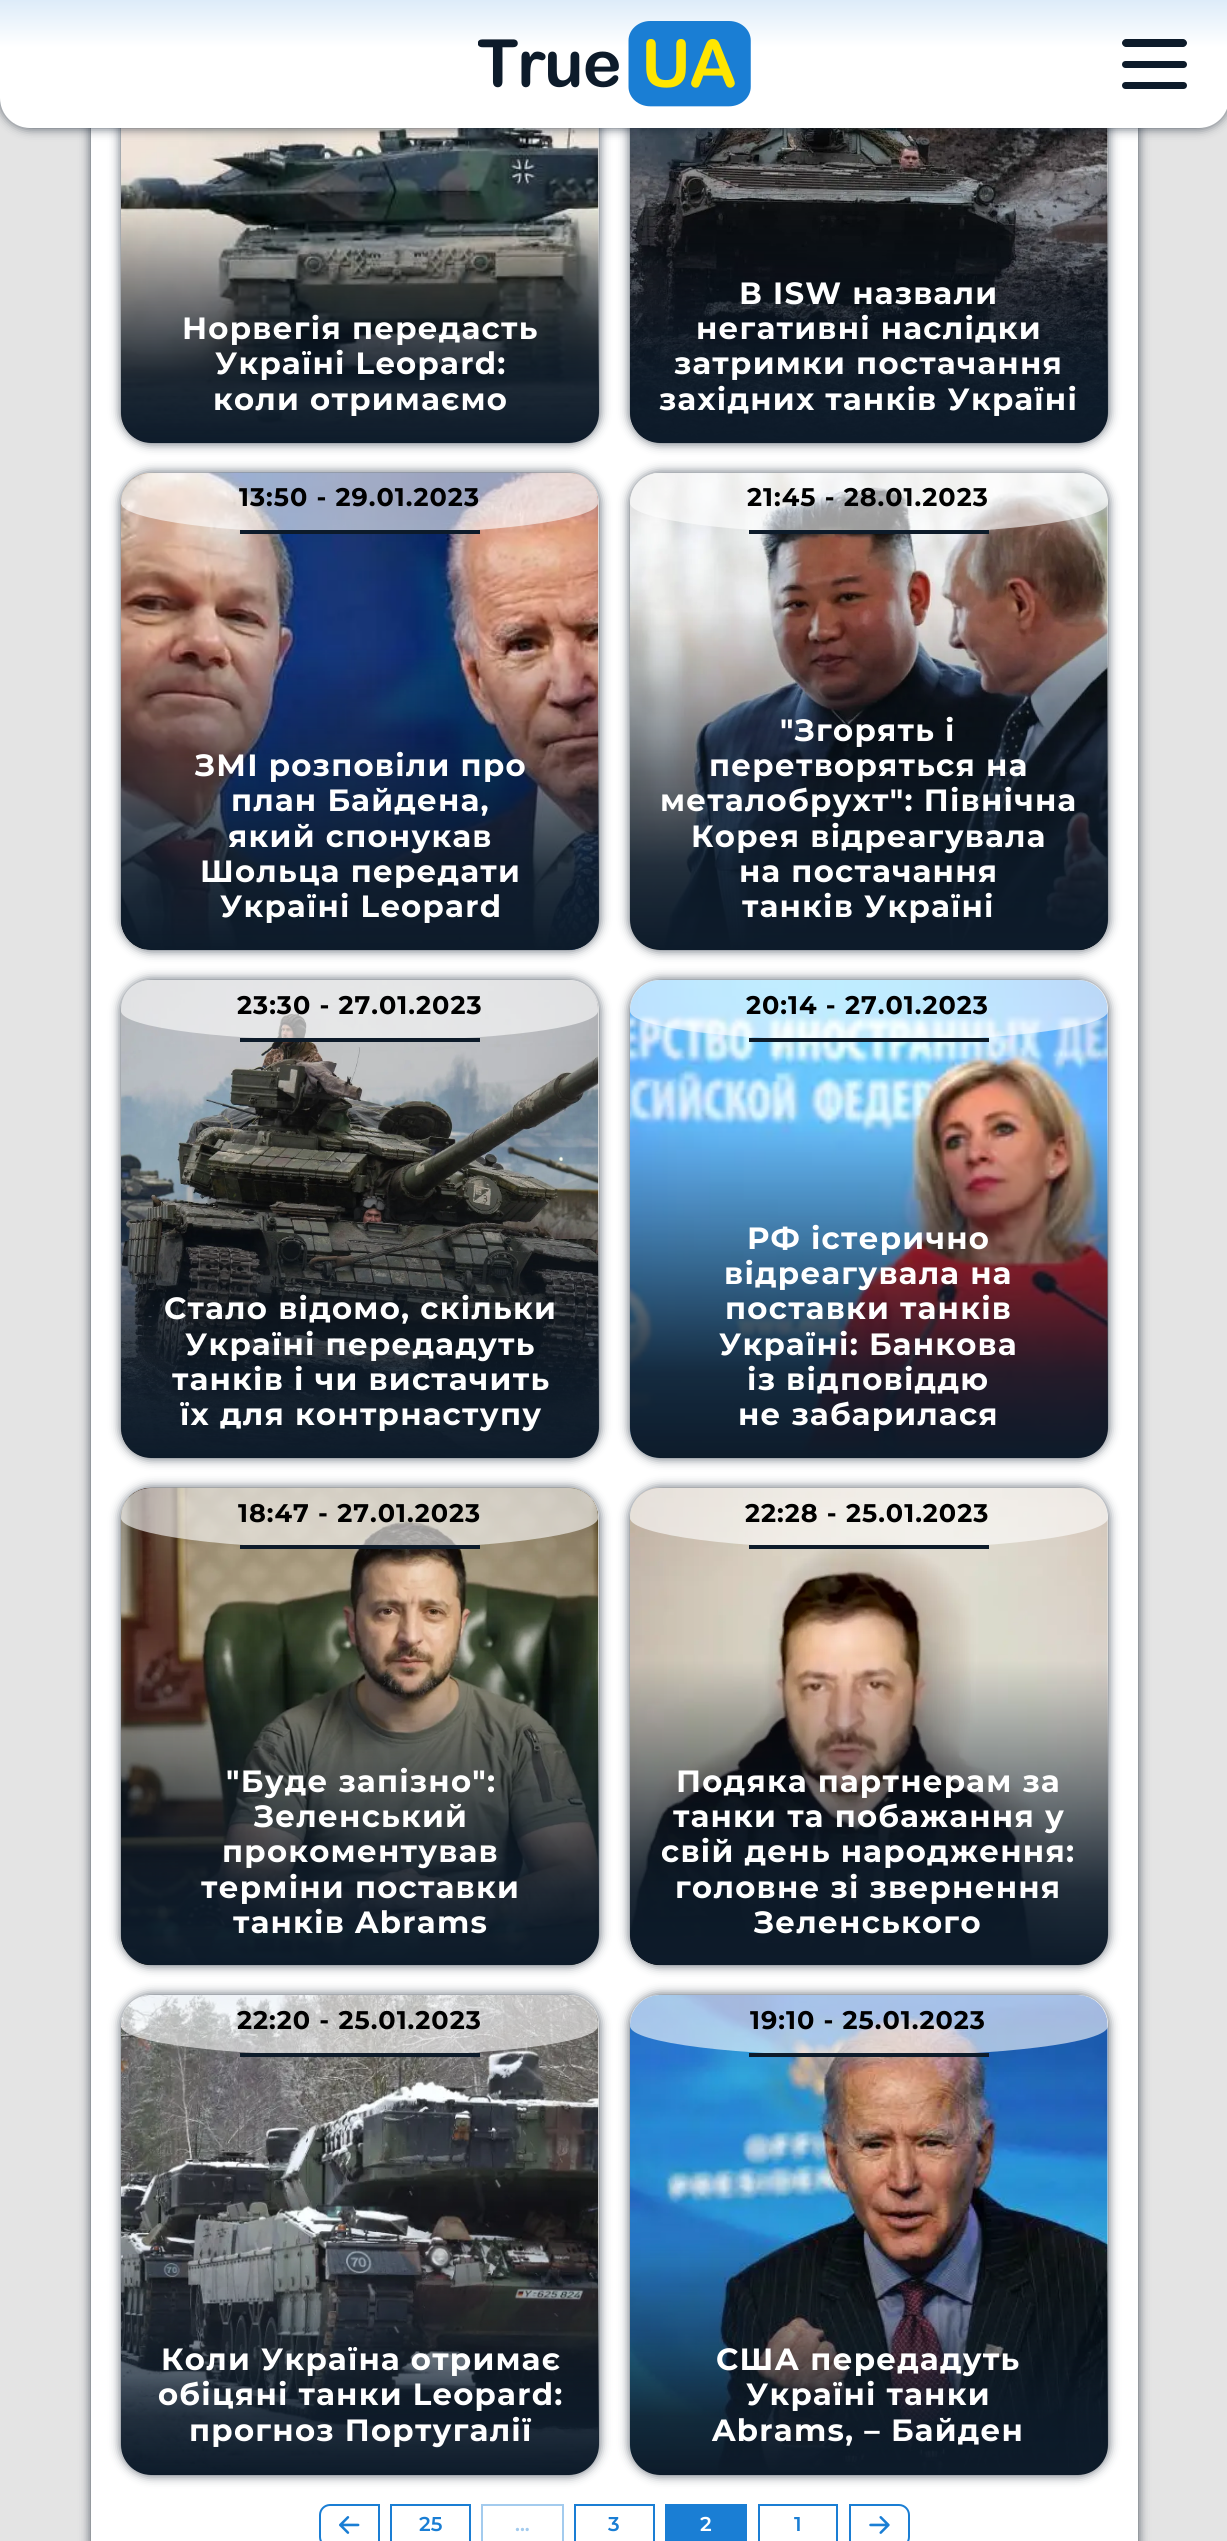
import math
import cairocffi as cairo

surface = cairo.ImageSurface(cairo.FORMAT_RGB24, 1227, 2541)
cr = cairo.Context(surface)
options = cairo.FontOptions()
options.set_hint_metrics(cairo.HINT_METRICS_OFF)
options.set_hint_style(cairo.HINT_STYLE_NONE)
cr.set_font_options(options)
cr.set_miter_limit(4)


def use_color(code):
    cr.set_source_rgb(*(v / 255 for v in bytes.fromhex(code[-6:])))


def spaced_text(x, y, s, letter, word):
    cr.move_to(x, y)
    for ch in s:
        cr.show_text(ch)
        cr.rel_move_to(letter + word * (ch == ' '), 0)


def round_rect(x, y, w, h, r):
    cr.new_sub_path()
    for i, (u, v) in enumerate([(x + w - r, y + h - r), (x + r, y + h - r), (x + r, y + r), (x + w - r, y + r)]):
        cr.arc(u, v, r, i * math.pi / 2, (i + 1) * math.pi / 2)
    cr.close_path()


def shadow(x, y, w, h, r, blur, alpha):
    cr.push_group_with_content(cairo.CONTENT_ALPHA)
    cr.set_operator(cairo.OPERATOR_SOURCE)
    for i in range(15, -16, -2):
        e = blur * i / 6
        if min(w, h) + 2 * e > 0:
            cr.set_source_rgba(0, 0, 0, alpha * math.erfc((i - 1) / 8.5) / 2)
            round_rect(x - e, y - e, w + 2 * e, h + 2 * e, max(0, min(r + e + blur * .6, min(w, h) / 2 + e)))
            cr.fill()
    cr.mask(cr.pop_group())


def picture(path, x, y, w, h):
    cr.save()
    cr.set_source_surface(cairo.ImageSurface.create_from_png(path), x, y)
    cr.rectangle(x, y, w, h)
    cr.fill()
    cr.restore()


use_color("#e4e4e4")
cr.paint()
use_color("#0d1b2a")
shadow(91, -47, 1047, 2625, 30, 5.5, 0.75)
use_color("#ffffff")
cr.rectangle(91, 128, 1047, 2413)
cr.fill()
use_color("#0d1b2a")
shadow(121, -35, 478, 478, 30, 5.5, 0.75)
use_color("#e4e4e4")
round_rect(121, -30, 478, 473, 30)
cr.fill()
picture("img2.png", 121, 128, 478, 315)
use_color("#0d1b2a")
shadow(630, -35, 478, 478, 30, 5.5, 0.75)
use_color("#e4e4e4")
round_rect(630, -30, 478, 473, 30)
cr.fill()
picture("img3.png", 630, 128, 478, 315)
use_color("#0d1b2a")
shadow(0, 0, 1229, 128, 30, 5.5, 0.75)
gradient = cairo.LinearGradient(614, 128, 614, 0)
gradient.add_color_stop_rgba(0, 1, 1, 1, 1)
gradient.add_color_stop_rgba(0.63, 1, 1, 1, 1)
gradient.add_color_stop_rgba(1, 0.867, 0.925, 0.976, 1)
cr.set_source(gradient)
cr.new_path()
cr.move_to(0, 0)
cr.line_to(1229, 0)
cr.line_to(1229, 98)
cr.curve_to(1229, 114.5, 1215.5, 128, 1199, 128)
cr.line_to(30, 128)
cr.curve_to(13.5, 128, 0, 114.5, 0, 98)
cr.close_path()
cr.fill()
picture("img1.png", 478, 21, 273, 86)
use_color("#0d1b2a")
cr.new_path()
cr.move_to(1126, 39)
cr.line_to(1157, 39)
cr.line_to(1157, 47)
cr.line_to(1126, 47)
cr.curve_to(1124, 47, 1122, 45, 1122, 43)
cr.curve_to(1122, 41, 1124, 39, 1126, 39)
cr.close_path()
cr.fill()
cr.new_path()
cr.move_to(1152, 39)
cr.line_to(1183, 39)
cr.curve_to(1185, 39, 1187, 41, 1187, 43)
cr.curve_to(1187, 45, 1185, 47, 1183, 47)
cr.line_to(1152, 47)
cr.close_path()
cr.fill()
cr.new_path()
cr.move_to(1125.5, 61)
cr.line_to(1157, 61)
cr.line_to(1157, 68)
cr.line_to(1125.5, 68)
cr.curve_to(1123.5, 68, 1122, 66.5, 1122, 64.5)
cr.curve_to(1122, 62.5, 1123.5, 61, 1125.5, 61)
cr.close_path()
cr.fill()
cr.new_path()
cr.move_to(1152, 61)
cr.line_to(1183.5, 61)
cr.curve_to(1185.5, 61, 1187, 62.5, 1187, 64.5)
cr.curve_to(1187, 66.5, 1185.5, 68, 1183.5, 68)
cr.line_to(1152, 68)
cr.close_path()
cr.fill()
cr.new_path()
cr.move_to(1125.5, 82)
cr.line_to(1157, 82)
cr.line_to(1157, 89)
cr.line_to(1125.5, 89)
cr.curve_to(1123.5, 89, 1122, 87.5, 1122, 85.5)
cr.curve_to(1122, 83.5, 1123.5, 82, 1125.5, 82)
cr.close_path()
cr.fill()
cr.new_path()
cr.move_to(1152, 82)
cr.line_to(1183.5, 82)
cr.curve_to(1185.5, 82, 1187, 83.5, 1187, 85.5)
cr.curve_to(1187, 87.5, 1185.5, 89, 1183.5, 89)
cr.line_to(1152, 89)
cr.close_path()
cr.fill()
gradient = cairo.LinearGradient(360, 443, 360, 208)
gradient.add_color_stop_rgba(0, 0.051, 0.106, 0.165, 1)
gradient.add_color_stop_rgba(0.25, 0.051, 0.106, 0.165, 0.9)
gradient.add_color_stop_rgba(0.5, 0.051, 0.106, 0.165, 0.6)
gradient.add_color_stop_rgba(0.75, 0.051, 0.106, 0.165, 0.3)
gradient.add_color_stop_rgba(1, 0.051, 0.106, 0.165, 0)
cr.set_source(gradient)
cr.new_path()
cr.move_to(121, 208)
cr.line_to(599, 208)
cr.line_to(599, 413)
cr.curve_to(599, 429.5, 585.5, 443, 569, 443)
cr.line_to(151, 443)
cr.curve_to(134.5, 443, 121, 429.5, 121, 413)
cr.close_path()
cr.fill()
cr.select_font_face("Montserrat", cairo.FONT_SLANT_NORMAL, cairo.FONT_WEIGHT_BOLD)
cr.set_font_size(30.75)
use_color("#ffffff")
spaced_text(182, 339, "Норвегія передасть", 1.25, 0)
spaced_text(215, 374, "Україні Leopard:", 1.25, 0)
spaced_text(213, 410, "коли отримаємо", 1.25, 0)
gradient = cairo.LinearGradient(869, 443, 869, 173)
gradient.add_color_stop_rgba(0, 0.051, 0.106, 0.165, 1)
gradient.add_color_stop_rgba(0.25, 0.051, 0.106, 0.165, 0.9)
gradient.add_color_stop_rgba(0.5, 0.051, 0.106, 0.165, 0.6)
gradient.add_color_stop_rgba(0.75, 0.051, 0.106, 0.165, 0.3)
gradient.add_color_stop_rgba(1, 0.051, 0.106, 0.165, 0)
cr.set_source(gradient)
cr.new_path()
cr.move_to(630, 173)
cr.line_to(1108, 173)
cr.line_to(1108, 413)
cr.curve_to(1108, 429.5, 1094.5, 443, 1078, 443)
cr.line_to(660, 443)
cr.curve_to(643.5, 443, 630, 429.5, 630, 413)
cr.close_path()
cr.fill()
use_color("#ffffff")
spaced_text(739, 304, "В ISW назвали", 1.25, 0)
spaced_text(696, 339, "негативні наслідки", 1.25, 0)
spaced_text(674, 374, "затримки постачання", 1.25, 0)
spaced_text(659, 410, "західних танків Україні", 1.25, 0)
use_color("#0d1b2a")
shadow(121, 473, 478, 477, 30, 5.5, 0.75)
use_color("#e4e4e4")
round_rect(121, 473, 478, 477, 30)
cr.fill()
picture("img4.png", 121, 472, 478, 478)
cr.set_source_rgba(1, 1, 1, 0.6)
cr.new_path()
cr.move_to(151, 473)
cr.curve_to(134, 473, 121, 486, 121, 503)
cr.curve_to(121, 520, 228, 534, 360, 534)
cr.curve_to(492, 534, 598, 520, 598, 503)
cr.line_to(598, 502)
cr.curve_to(598, 494, 595, 487, 590, 482)
cr.curve_to(585, 476, 577, 473, 569, 473)
cr.close_path()
cr.fill()
use_color("#0d1b2a")
cr.rectangle(240, 530, 240, 4)
cr.fill()
cr.set_font_size(25.5)
use_color("#000000")
spaced_text(239, 506, "13:50 - 29.01.2023", 1, 0)
gradient = cairo.LinearGradient(360, 950, 360, 646)
gradient.add_color_stop_rgba(0, 0.051, 0.106, 0.165, 1)
gradient.add_color_stop_rgba(0.25, 0.051, 0.106, 0.165, 0.9)
gradient.add_color_stop_rgba(0.5, 0.051, 0.106, 0.165, 0.6)
gradient.add_color_stop_rgba(0.75, 0.051, 0.106, 0.165, 0.3)
gradient.add_color_stop_rgba(1, 0.051, 0.106, 0.165, 0)
cr.set_source(gradient)
cr.new_path()
cr.move_to(121, 646)
cr.line_to(599, 646)
cr.line_to(599, 920)
cr.curve_to(599, 936.5, 585.5, 950, 569, 950)
cr.line_to(151, 950)
cr.curve_to(134.5, 950, 121, 936.5, 121, 920)
cr.close_path()
cr.fill()
cr.set_font_size(30.75)
use_color("#ffffff")
spaced_text(195, 776, "ЗМІ розповіли про", 1.25, 0)
spaced_text(231, 811, "план Байдена,", 1.25, 0)
spaced_text(228, 847, "який спонукав", 1.25, 0)
spaced_text(200, 882, "Шольца передати", 1.25, 0)
spaced_text(220, 917, "Україні Leopard", 1.25, 0)
use_color("#0d1b2a")
shadow(630, 473, 478, 477, 30, 5.5, 0.75)
use_color("#e4e4e4")
round_rect(630, 473, 478, 477, 30)
cr.fill()
picture("img5.png", 630, 472, 478, 478)
cr.set_source_rgba(1, 1, 1, 0.6)
cr.new_path()
cr.move_to(660, 473)
cr.curve_to(643, 473, 630, 486, 630, 503)
cr.curve_to(630, 520, 737, 534, 869, 534)
cr.curve_to(1001, 534, 1108, 520, 1108, 503)
cr.curve_to(1108, 486, 1095, 473, 1078, 473)
cr.close_path()
cr.fill()
use_color("#0d1b2a")
cr.rectangle(749, 530, 240, 4)
cr.fill()
cr.set_font_size(25.5)
use_color("#000000")
spaced_text(747, 506, "21:45 - 28.01.2023", 1, 0)
gradient = cairo.LinearGradient(869, 950, 869, 611)
gradient.add_color_stop_rgba(0, 0.051, 0.106, 0.165, 1)
gradient.add_color_stop_rgba(0.25, 0.051, 0.106, 0.165, 0.9)
gradient.add_color_stop_rgba(0.5, 0.051, 0.106, 0.165, 0.6)
gradient.add_color_stop_rgba(0.75, 0.051, 0.106, 0.165, 0.3)
gradient.add_color_stop_rgba(1, 0.051, 0.106, 0.165, 0)
cr.set_source(gradient)
cr.new_path()
cr.move_to(630, 611)
cr.line_to(1108, 611)
cr.line_to(1108, 920)
cr.curve_to(1108, 936.5, 1094.5, 950, 1078, 950)
cr.line_to(660, 950)
cr.curve_to(643.5, 950, 630, 936.5, 630, 920)
cr.close_path()
cr.fill()
cr.set_font_size(30.75)
use_color("#ffffff")
spaced_text(780, 741, "\"Згорять і", 1.25, 0)
spaced_text(709, 776, "перетворяться на", 1.25, 0)
spaced_text(660, 811, "металобрухт\": Північна", 1.25, 0)
spaced_text(691, 847, "Корея відреагувала", 1.25, 0)
spaced_text(739, 882, "на постачання", 1.25, 0)
spaced_text(742, 917, "танків Україні", 1.25, 0)
use_color("#0d1b2a")
shadow(121, 980, 478, 478, 30, 5.5, 0.75)
use_color("#e4e4e4")
round_rect(121, 980, 478, 478, 30)
cr.fill()
picture("img6.png", 121, 980, 478, 478)
cr.set_source_rgba(1, 1, 1, 0.6)
cr.new_path()
cr.move_to(151, 980)
cr.line_to(569, 980)
cr.curve_to(585, 980, 598, 993, 598, 1010)
cr.line_to(598, 1011)
cr.curve_to(598, 1028, 492, 1041, 360, 1041)
cr.curve_to(228, 1041, 121, 1028, 121, 1011)
cr.line_to(121, 1010)
cr.curve_to(121, 993, 134, 980, 151, 980)
cr.close_path()
cr.fill()
use_color("#0d1b2a")
cr.rectangle(240, 1038, 240, 4)
cr.fill()
cr.set_font_size(25.5)
use_color("#000000")
spaced_text(237, 1014, "23:30 - 27.01.2023", 1, 0)
gradient = cairo.LinearGradient(360, 1458, 360, 1188)
gradient.add_color_stop_rgba(0, 0.051, 0.106, 0.165, 1)
gradient.add_color_stop_rgba(0.25, 0.051, 0.106, 0.165, 0.9)
gradient.add_color_stop_rgba(0.5, 0.051, 0.106, 0.165, 0.6)
gradient.add_color_stop_rgba(0.75, 0.051, 0.106, 0.165, 0.3)
gradient.add_color_stop_rgba(1, 0.051, 0.106, 0.165, 0)
cr.set_source(gradient)
cr.new_path()
cr.move_to(121, 1188)
cr.line_to(599, 1188)
cr.line_to(599, 1428)
cr.curve_to(599, 1444.5, 585.5, 1458, 569, 1458)
cr.line_to(151, 1458)
cr.curve_to(134.5, 1458, 121, 1444.5, 121, 1428)
cr.close_path()
cr.fill()
cr.set_font_size(30.75)
use_color("#ffffff")
spaced_text(164, 1319, "Стало відомо, скільки", 1.25, 0)
spaced_text(185, 1355, "Україні передадуть", 1.25, 0)
spaced_text(172, 1390, "танків і чи вистачить", 1.25, 0)
spaced_text(180, 1425, "їх для контрнаступу", 1.25, 0)
use_color("#0d1b2a")
shadow(630, 980, 478, 478, 30, 5.5, 0.75)
use_color("#e4e4e4")
round_rect(630, 980, 478, 478, 30)
cr.fill()
picture("img7.png", 630, 980, 478, 478)
cr.set_source_rgba(1, 1, 1, 0.6)
cr.new_path()
cr.move_to(660, 980)
cr.line_to(1078, 980)
cr.curve_to(1095, 980, 1108, 993, 1108, 1010)
cr.line_to(1108, 1011)
cr.curve_to(1108, 1028, 1001, 1041, 869, 1041)
cr.curve_to(737, 1041, 630, 1028, 630, 1011)
cr.line_to(630, 1010)
cr.curve_to(630, 993, 643, 980, 660, 980)
cr.close_path()
cr.fill()
use_color("#0d1b2a")
cr.rectangle(749, 1038, 240, 4)
cr.fill()
cr.set_font_size(25.5)
use_color("#000000")
spaced_text(746, 1014, "20:14 - 27.01.2023", 1, 0)
gradient = cairo.LinearGradient(869, 1458, 869, 1118)
gradient.add_color_stop_rgba(0, 0.051, 0.106, 0.165, 1)
gradient.add_color_stop_rgba(0.25, 0.051, 0.106, 0.165, 0.9)
gradient.add_color_stop_rgba(0.5, 0.051, 0.106, 0.165, 0.6)
gradient.add_color_stop_rgba(0.75, 0.051, 0.106, 0.165, 0.3)
gradient.add_color_stop_rgba(1, 0.051, 0.106, 0.165, 0)
cr.set_source(gradient)
cr.new_path()
cr.move_to(630, 1118)
cr.line_to(1108, 1118)
cr.line_to(1108, 1428)
cr.curve_to(1108, 1444.5, 1094.5, 1458, 1078, 1458)
cr.line_to(660, 1458)
cr.curve_to(643.5, 1458, 630, 1444.5, 630, 1428)
cr.close_path()
cr.fill()
cr.set_font_size(30.75)
use_color("#ffffff")
spaced_text(747, 1249, "РФ істерично", 1.25, 0)
spaced_text(724, 1284, "відреагувала на", 1.25, 0)
spaced_text(725, 1319, "поставки танків", 1.25, 0)
spaced_text(719, 1355, "Україні: Банкова", 1.25, 0)
spaced_text(747, 1390, "із відповіддю", 1.25, 0)
spaced_text(738, 1425, "не забарилася", 1.25, 0)
use_color("#0d1b2a")
shadow(121, 1488, 478, 477, 30, 5.5, 0.75)
use_color("#e4e4e4")
round_rect(121, 1488, 478, 477, 30)
cr.fill()
picture("img8.png", 121, 1487, 478, 478)
cr.set_source_rgba(1, 1, 1, 0.6)
cr.new_path()
cr.move_to(151, 1488)
cr.line_to(569, 1488)
cr.curve_to(585, 1488, 598, 1501, 598, 1517)
cr.line_to(598, 1518)
cr.curve_to(598, 1535, 492, 1549, 360, 1549)
cr.curve_to(228, 1549, 121, 1535, 121, 1518)
cr.curve_to(121, 1501, 134, 1488, 151, 1488)
cr.close_path()
cr.fill()
use_color("#0d1b2a")
cr.rectangle(240, 1545, 240, 4)
cr.fill()
cr.set_font_size(25.5)
use_color("#000000")
spaced_text(238, 1522, "18:47 - 27.01.2023", 1, 0)
gradient = cairo.LinearGradient(360, 1965, 360, 1661)
gradient.add_color_stop_rgba(0, 0.051, 0.106, 0.165, 1)
gradient.add_color_stop_rgba(0.25, 0.051, 0.106, 0.165, 0.9)
gradient.add_color_stop_rgba(0.5, 0.051, 0.106, 0.165, 0.6)
gradient.add_color_stop_rgba(0.75, 0.051, 0.106, 0.165, 0.3)
gradient.add_color_stop_rgba(1, 0.051, 0.106, 0.165, 0)
cr.set_source(gradient)
cr.new_path()
cr.move_to(121, 1661)
cr.line_to(599, 1661)
cr.line_to(599, 1935)
cr.curve_to(599, 1951.5, 585.5, 1965, 569, 1965)
cr.line_to(151, 1965)
cr.curve_to(134.5, 1965, 121, 1951.5, 121, 1935)
cr.close_path()
cr.fill()
cr.set_font_size(30.75)
use_color("#ffffff")
spaced_text(226, 1792, "\"Буде запізно\":", 1.25, 0)
spaced_text(254, 1827, "Зеленський", 1.25, 0)
spaced_text(222, 1862, "прокоментував", 1.25, 0)
spaced_text(201, 1898, "терміни поставки", 1.25, 0)
spaced_text(233, 1933, "танків Abrams", 1.25, 0)
use_color("#0d1b2a")
shadow(630, 1488, 478, 477, 30, 5.5, 0.75)
use_color("#e4e4e4")
round_rect(630, 1488, 478, 477, 30)
cr.fill()
picture("img9.png", 630, 1487, 478, 478)
cr.set_source_rgba(1, 1, 1, 0.6)
cr.new_path()
cr.move_to(660, 1488)
cr.line_to(1078, 1488)
cr.curve_to(1084, 1488, 1090, 1490, 1095, 1493)
cr.curve_to(1103, 1498, 1108, 1508, 1108, 1518)
cr.curve_to(1108, 1535, 1001, 1549, 869, 1549)
cr.curve_to(737, 1549, 630, 1535, 630, 1518)
cr.curve_to(630, 1501, 643, 1488, 660, 1488)
cr.close_path()
cr.fill()
use_color("#0d1b2a")
cr.rectangle(749, 1545, 240, 4)
cr.fill()
cr.set_font_size(25.5)
use_color("#000000")
spaced_text(745, 1522, "22:28 - 25.01.2023", 1, 0)
gradient = cairo.LinearGradient(869, 1965, 869, 1661)
gradient.add_color_stop_rgba(0, 0.051, 0.106, 0.165, 1)
gradient.add_color_stop_rgba(0.25, 0.051, 0.106, 0.165, 0.9)
gradient.add_color_stop_rgba(0.5, 0.051, 0.106, 0.165, 0.6)
gradient.add_color_stop_rgba(0.75, 0.051, 0.106, 0.165, 0.3)
gradient.add_color_stop_rgba(1, 0.051, 0.106, 0.165, 0)
cr.set_source(gradient)
cr.new_path()
cr.move_to(630, 1661)
cr.line_to(1108, 1661)
cr.line_to(1108, 1935)
cr.curve_to(1108, 1951.5, 1094.5, 1965, 1078, 1965)
cr.line_to(660, 1965)
cr.curve_to(643.5, 1965, 630, 1951.5, 630, 1935)
cr.close_path()
cr.fill()
cr.set_font_size(30.75)
use_color("#ffffff")
spaced_text(676, 1792, "Подяка партнерам за", 1.25, 0)
spaced_text(673, 1827, "танки та побажання у", 1.25, 0)
spaced_text(661, 1862, "свій день народження:", 1.25, 0)
spaced_text(675, 1898, "головне зі звернення", 1.25, 0)
spaced_text(754, 1933, "Зеленського", 1.25, 0)
use_color("#0d1b2a")
shadow(121, 1995, 478, 480, 30, 5.5, 0.75)
use_color("#e4e4e4")
round_rect(121, 1995, 478, 480, 30)
cr.fill()
picture("img10.png", 121, 1995, 478, 480)
cr.set_source_rgba(1, 1, 1, 0.6)
cr.new_path()
cr.move_to(151, 1995)
cr.line_to(569, 1995)
cr.curve_to(585, 1995, 598, 2008, 598, 2025)
cr.line_to(598, 2026)
cr.curve_to(598, 2043, 492, 2056, 360, 2056)
cr.curve_to(228, 2056, 121, 2043, 121, 2026)
cr.line_to(121, 2025)
cr.curve_to(121, 2008, 134, 1995, 151, 1995)
cr.close_path()
cr.fill()
use_color("#0d1b2a")
cr.rectangle(240, 2053, 240, 4)
cr.fill()
cr.set_font_size(25.5)
use_color("#000000")
spaced_text(237, 2029, "22:20 - 25.01.2023", 1, 0)
gradient = cairo.LinearGradient(360, 2475, 360, 2240)
gradient.add_color_stop_rgba(0, 0.051, 0.106, 0.165, 1)
gradient.add_color_stop_rgba(0.25, 0.051, 0.106, 0.165, 0.9)
gradient.add_color_stop_rgba(0.5, 0.051, 0.106, 0.165, 0.6)
gradient.add_color_stop_rgba(0.75, 0.051, 0.106, 0.165, 0.3)
gradient.add_color_stop_rgba(1, 0.051, 0.106, 0.165, 0)
cr.set_source(gradient)
cr.new_path()
cr.move_to(121, 2240)
cr.line_to(599, 2240)
cr.line_to(599, 2445)
cr.curve_to(599, 2461.5, 585.5, 2475, 569, 2475)
cr.line_to(151, 2475)
cr.curve_to(134.5, 2475, 121, 2461.5, 121, 2445)
cr.close_path()
cr.fill()
cr.set_font_size(30.75)
use_color("#ffffff")
spaced_text(161, 2370, "Коли Україна отримає", 1.25, 0)
spaced_text(158, 2405, "обіцяні танки Leopard:", 1.25, 0)
spaced_text(189, 2441, "прогноз Португалії", 1.25, 0)
use_color("#0d1b2a")
shadow(630, 1995, 478, 480, 30, 5.5, 0.75)
use_color("#e4e4e4")
round_rect(630, 1995, 478, 480, 30)
cr.fill()
picture("img11.png", 630, 1995, 478, 480)
cr.set_source_rgba(1, 1, 1, 0.6)
cr.new_path()
cr.move_to(660, 1995)
cr.line_to(1078, 1995)
cr.curve_to(1095, 1995, 1108, 2008, 1108, 2025)
cr.line_to(1108, 2026)
cr.curve_to(1108, 2043, 1001, 2056, 869, 2056)
cr.curve_to(737, 2056, 630, 2043, 630, 2026)
cr.line_to(630, 2025)
cr.curve_to(630, 2008, 643, 1995, 660, 1995)
cr.close_path()
cr.fill()
use_color("#0d1b2a")
cr.rectangle(749, 2053, 240, 4)
cr.fill()
cr.set_font_size(25.5)
use_color("#000000")
spaced_text(750, 2029, "19:10 - 25.01.2023", 1, 0)
gradient = cairo.LinearGradient(869, 2475, 869, 2240)
gradient.add_color_stop_rgba(0, 0.051, 0.106, 0.165, 1)
gradient.add_color_stop_rgba(0.25, 0.051, 0.106, 0.165, 0.9)
gradient.add_color_stop_rgba(0.5, 0.051, 0.106, 0.165, 0.6)
gradient.add_color_stop_rgba(0.75, 0.051, 0.106, 0.165, 0.3)
gradient.add_color_stop_rgba(1, 0.051, 0.106, 0.165, 0)
cr.set_source(gradient)
cr.new_path()
cr.move_to(630, 2240)
cr.line_to(1108, 2240)
cr.line_to(1108, 2445)
cr.curve_to(1108, 2461.5, 1094.5, 2475, 1078, 2475)
cr.line_to(660, 2475)
cr.curve_to(643.5, 2475, 630, 2461.5, 630, 2445)
cr.close_path()
cr.fill()
cr.set_font_size(30.75)
use_color("#ffffff")
spaced_text(716, 2370, "США передадуть", 1.25, 0)
spaced_text(746, 2405, "Україні танки", 1.25, 0)
spaced_text(712, 2441, "Abrams, – Байден", 1.25, 0)
cr.new_path()
cr.move_to(330, 2505)
cr.line_to(379, 2505)
cr.line_to(379, 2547)
cr.line_to(330, 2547)
cr.curve_to(324.5, 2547, 320, 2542.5, 320, 2537)
cr.line_to(320, 2515)
cr.curve_to(320, 2509.5, 324.5, 2505, 330, 2505)
cr.close_path()
use_color("#1a7ed4")
cr.stroke()
picture("img12.png", 339, 2516, 21, 18)
cr.rectangle(391, 2505, 79, 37)
cr.stroke()
cr.select_font_face("Montserrat SemiBold")
cr.set_font_size(20)
cr.move_to(419, 2531)
cr.show_text("25")
cr.rectangle(482, 2505, 81, 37)
use_color("#a3cbee")
cr.stroke()
cr.move_to(515, 2531)
cr.show_text("...")
cr.rectangle(575, 2505, 79, 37)
use_color("#1a7ed4")
cr.stroke()
cr.move_to(608, 2531)
cr.show_text("3")
cr.rectangle(665, 2504, 82, 37)
cr.fill()
use_color("#ffffff")
cr.move_to(700, 2531)
cr.show_text("2")
cr.rectangle(759, 2505, 78, 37)
use_color("#1a7ed4")
cr.stroke()
cr.move_to(794, 2531)
cr.show_text("1")
cr.new_path()
cr.move_to(850, 2505)
cr.line_to(899, 2505)
cr.curve_to(904.5, 2505, 909, 2509.5, 909, 2515)
cr.line_to(909, 2537)
cr.curve_to(909, 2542.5, 904.5, 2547, 899, 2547)
cr.line_to(850, 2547)
cr.close_path()
cr.stroke()
picture("img13.png", 869, 2516, 21, 18)
surface.write_to_png("result.png")
